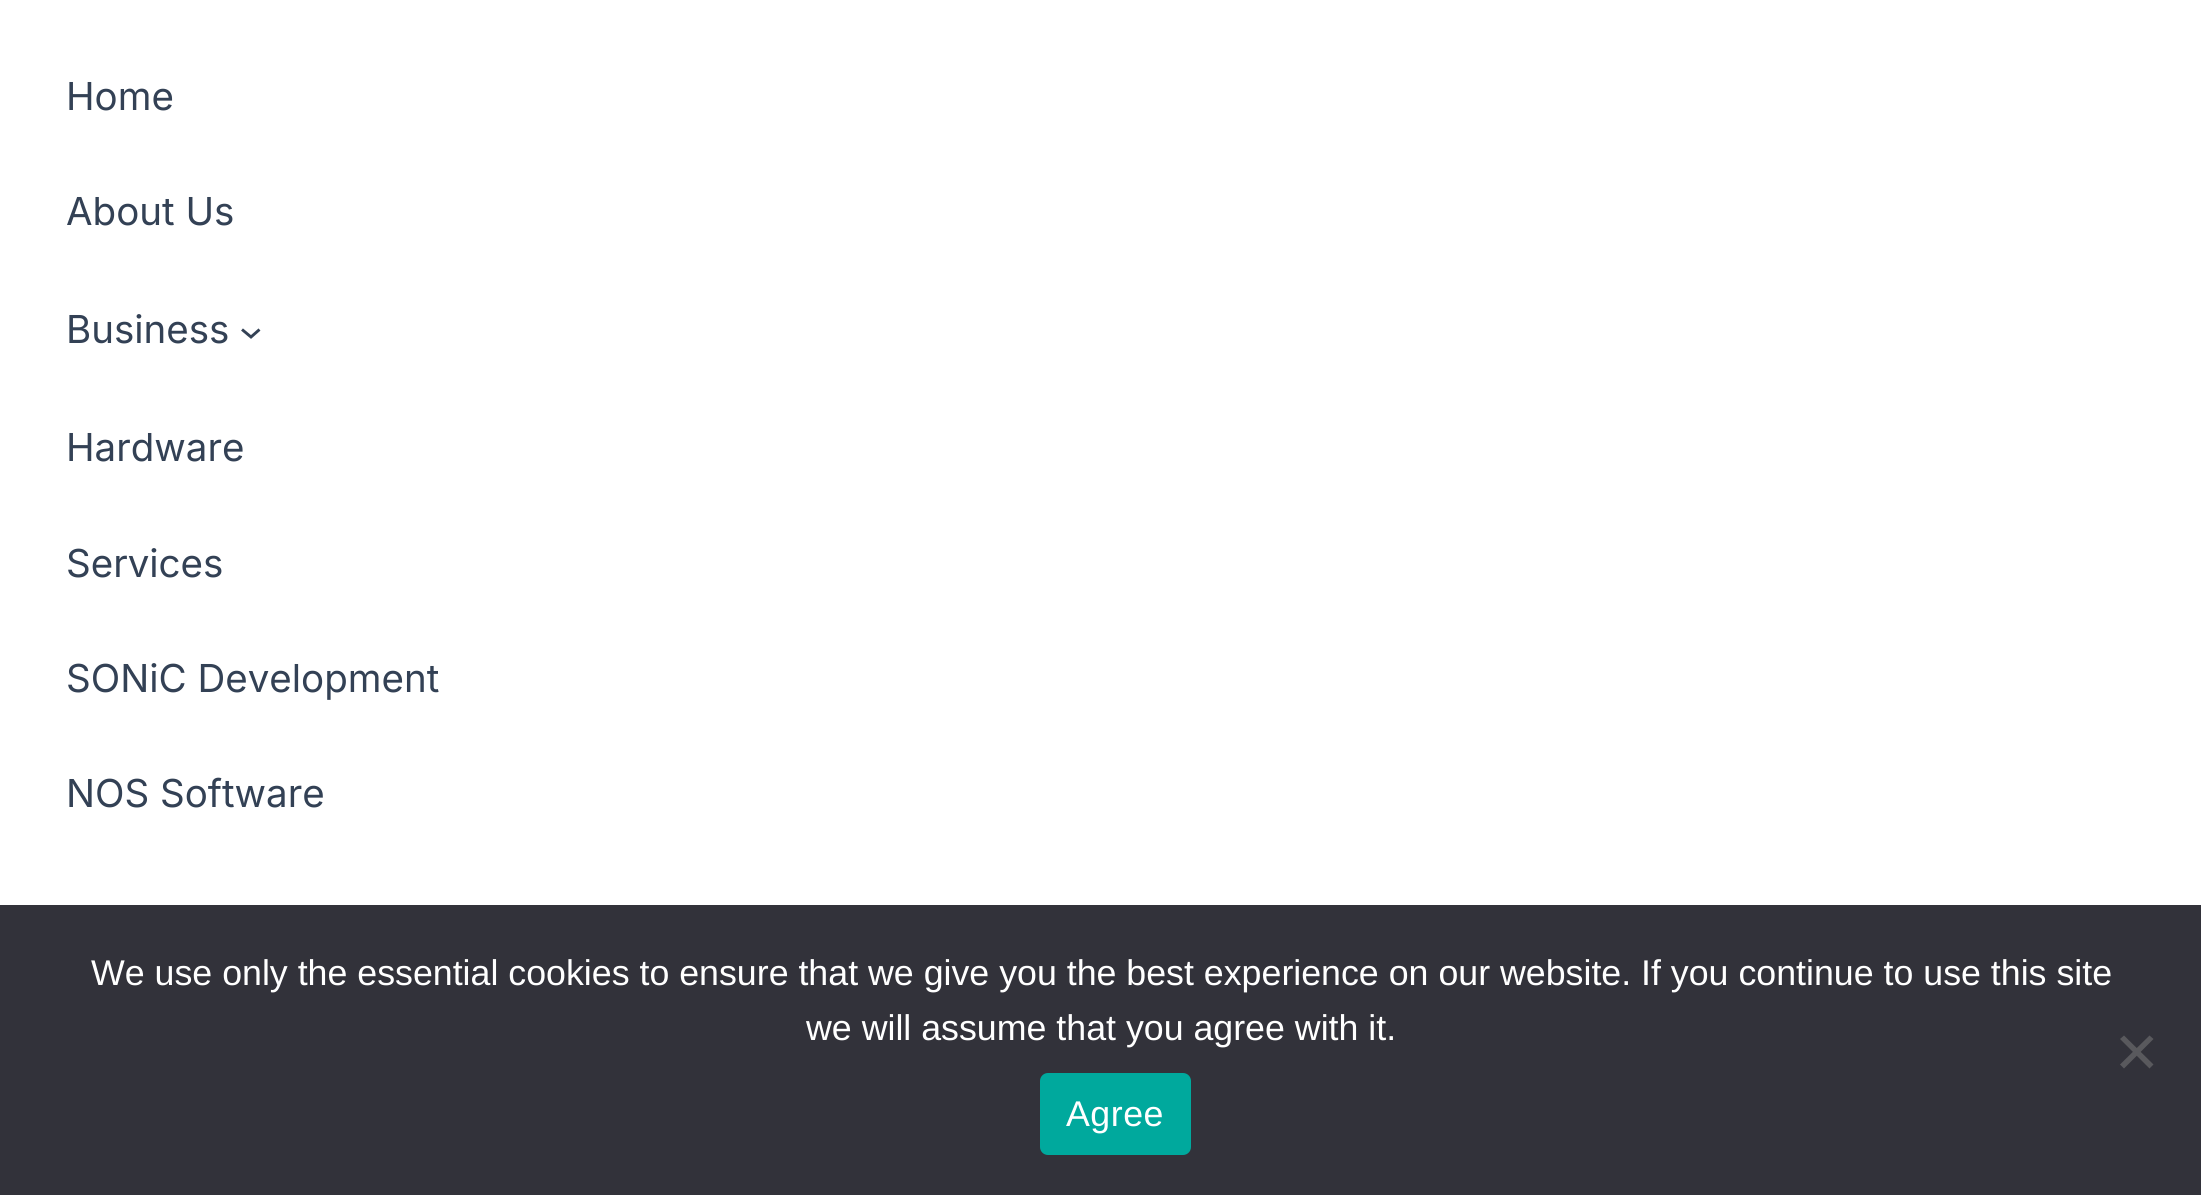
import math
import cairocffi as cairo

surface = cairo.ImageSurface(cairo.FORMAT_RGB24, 2201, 1195)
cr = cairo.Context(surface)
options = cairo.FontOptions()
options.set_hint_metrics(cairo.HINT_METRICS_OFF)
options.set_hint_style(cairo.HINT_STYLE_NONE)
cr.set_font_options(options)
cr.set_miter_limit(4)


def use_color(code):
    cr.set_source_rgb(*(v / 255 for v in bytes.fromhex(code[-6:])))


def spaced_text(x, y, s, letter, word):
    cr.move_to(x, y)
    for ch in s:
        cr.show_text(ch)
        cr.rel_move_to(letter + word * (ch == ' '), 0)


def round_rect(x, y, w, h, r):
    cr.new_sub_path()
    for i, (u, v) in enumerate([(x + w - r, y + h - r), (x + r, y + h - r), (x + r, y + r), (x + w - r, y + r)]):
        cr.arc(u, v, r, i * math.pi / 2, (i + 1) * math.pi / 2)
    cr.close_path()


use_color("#ffffff")
cr.paint()
cr.select_font_face("Inter")
cr.set_font_size(38.5)
use_color("#334155")
cr.move_to(66, 110)
cr.show_text("Home")
cr.move_to(66, 225)
cr.show_text("About Us")
cr.move_to(66, 343)
cr.show_text("Business")
cr.new_path()
cr.move_to(242, 329.5)
cr.line_to(251, 337)
cr.line_to(259.5, 329.5)
cr.set_line_width(2.9)
cr.stroke()
cr.move_to(66, 461)
cr.show_text("Hardware")
cr.move_to(66, 577)
cr.show_text("Services")
cr.move_to(66, 692)
cr.show_text("SONiC Development")
cr.move_to(66, 807)
cr.show_text("NOS Software")
use_color("#32323a")
cr.rectangle(0, 905, 2201, 290)
cr.fill()
cr.select_font_face("Liberation Sans")
cr.set_font_size(35.75)
use_color("#ffffff")
cr.move_to(91, 985)
cr.show_text("We use only the essential cookies to ensure that we give you the best experience on our website. If you continue to use this site")
cr.move_to(806, 1040)
cr.show_text("we will assume that you agree with it.")
use_color("#59595d")
cr.new_path()
cr.move_to(2149.5, 1035.5)
cr.line_to(2153.5, 1039)
cr.line_to(2124, 1068.5)
cr.line_to(2120, 1064.5)
cr.close_path()
cr.fill()
cr.new_path()
cr.move_to(2120, 1039)
cr.line_to(2124, 1035.5)
cr.line_to(2153.5, 1064.5)
cr.line_to(2149.5, 1068.5)
cr.close_path()
cr.fill()
use_color("#00a99d")
round_rect(1040, 1073, 151, 82, 8)
cr.fill()
use_color("#ffffff")
spaced_text(1066, 1126, "Agree", 0.5, 0)
surface.write_to_png("result.png")
